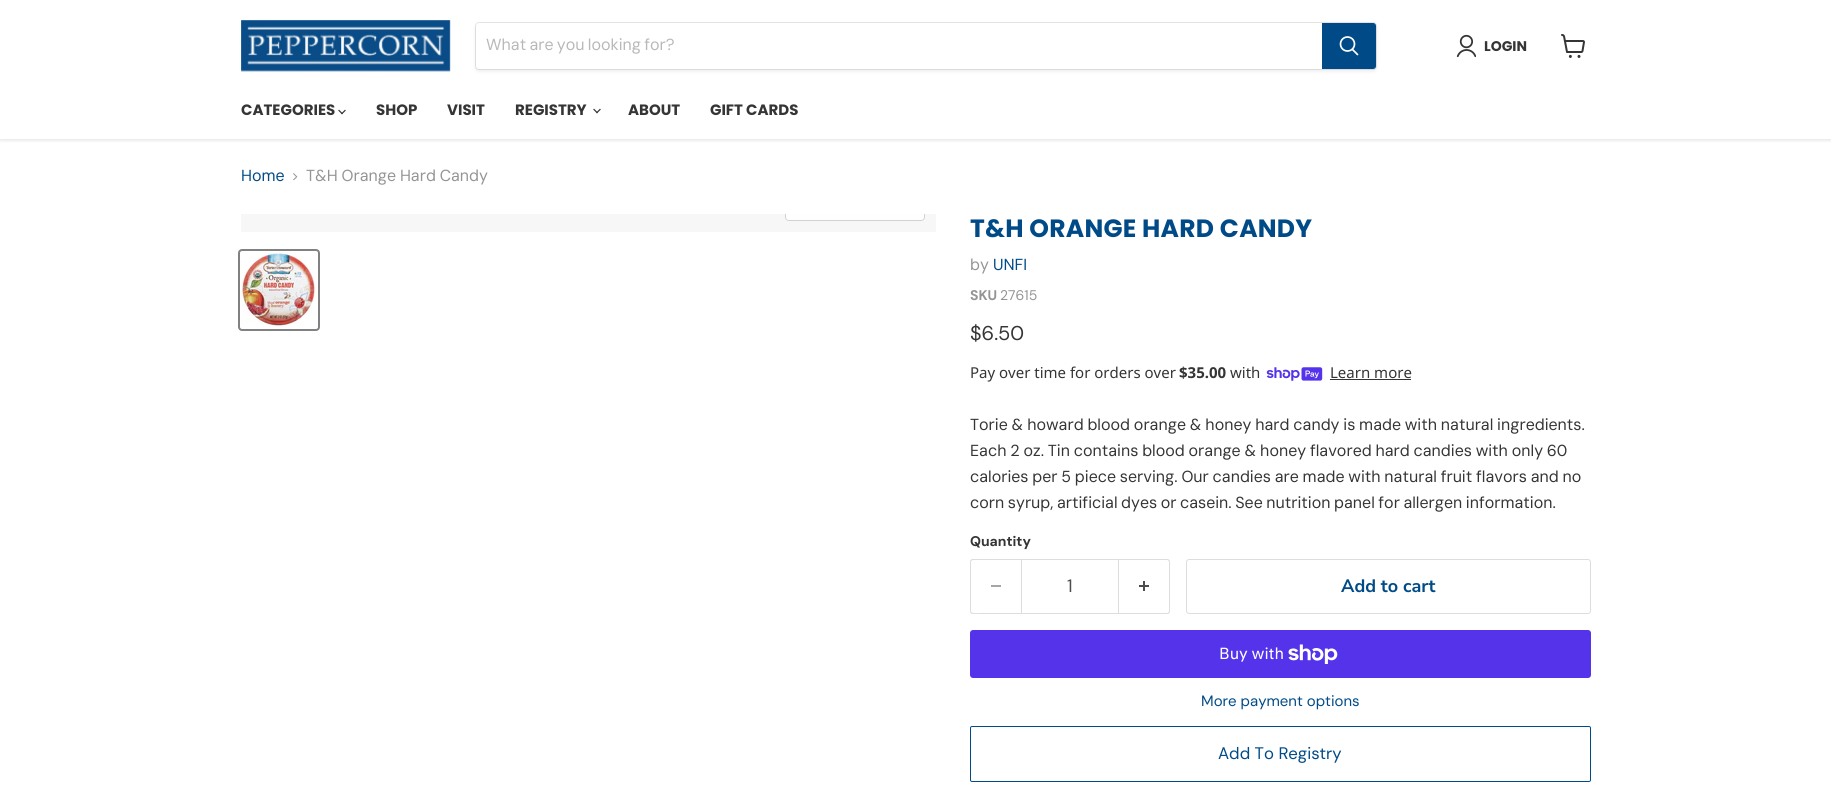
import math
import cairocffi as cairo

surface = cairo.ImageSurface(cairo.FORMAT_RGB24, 1831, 796)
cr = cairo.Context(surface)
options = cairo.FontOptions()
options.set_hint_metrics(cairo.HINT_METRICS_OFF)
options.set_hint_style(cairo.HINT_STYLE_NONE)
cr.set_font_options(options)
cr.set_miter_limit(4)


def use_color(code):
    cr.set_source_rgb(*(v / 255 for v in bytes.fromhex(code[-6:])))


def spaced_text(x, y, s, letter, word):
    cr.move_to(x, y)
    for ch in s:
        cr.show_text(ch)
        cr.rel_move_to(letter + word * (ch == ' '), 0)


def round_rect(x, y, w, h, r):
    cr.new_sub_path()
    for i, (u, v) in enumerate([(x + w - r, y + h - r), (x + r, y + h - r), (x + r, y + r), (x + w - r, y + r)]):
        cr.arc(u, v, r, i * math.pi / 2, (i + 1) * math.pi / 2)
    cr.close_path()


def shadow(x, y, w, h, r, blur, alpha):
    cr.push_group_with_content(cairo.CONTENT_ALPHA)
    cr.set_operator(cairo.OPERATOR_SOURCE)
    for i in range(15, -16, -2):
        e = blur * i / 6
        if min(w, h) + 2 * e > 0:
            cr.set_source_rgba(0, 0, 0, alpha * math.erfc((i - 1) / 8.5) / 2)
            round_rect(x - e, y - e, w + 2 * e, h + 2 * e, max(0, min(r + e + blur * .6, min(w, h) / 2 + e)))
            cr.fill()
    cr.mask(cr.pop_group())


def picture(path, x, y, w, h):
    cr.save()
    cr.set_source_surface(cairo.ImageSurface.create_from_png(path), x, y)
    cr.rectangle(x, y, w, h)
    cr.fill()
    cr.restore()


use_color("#ffffff")
cr.paint()
cr.save()
cr.rectangle(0, 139, 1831, 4)
cr.clip()
use_color("#808080")
shadow(0, 1, 1831, 139, 0, 2, 0.25)
cr.restore()
picture("img1.png", 241, 20, 210, 52)
use_color("#808080")
shadow(475, 24, 902, 48, 4, 1.5, 0.11)
round_rect(475.5, 22.5, 901, 47, 3.5)
cr.set_source_rgba(0.502, 0.502, 0.502, 0.2)
cr.set_line_width(1)
cr.stroke()
use_color("#ffffff")
cr.new_path()
cr.move_to(479, 23)
cr.line_to(1322, 23)
cr.line_to(1322, 69)
cr.line_to(479, 69)
cr.curve_to(477.5, 69, 476, 67.5, 476, 66)
cr.line_to(476, 26)
cr.curve_to(476, 24.5, 477.5, 23, 479, 23)
cr.close_path()
cr.fill()
cr.select_font_face("DM Sans")
cr.set_font_size(16)
use_color("#b8b8b8")
spaced_text(486, 50, "What are you looking for?", 0, -1)
use_color("#004b87")
cr.new_path()
cr.move_to(1322.5, 23.5)
cr.line_to(1373, 23.5)
cr.curve_to(1374.5, 23.5, 1375.5, 24.5, 1375.5, 26)
cr.line_to(1375.5, 66)
cr.curve_to(1375.5, 67.5, 1374.5, 68.5, 1373, 68.5)
cr.line_to(1322.5, 68.5)
cr.close_path()
cr.fill_preserve()
cr.stroke()
cr.new_path()
cr.move_to(1357.5, 54.5)
cr.line_to(1352.5, 49.5)
use_color("#ffffff")
cr.set_line_width(1.7)
cr.set_line_cap(cairo.LINE_CAP_ROUND)
cr.stroke()
cr.arc(1347.5, 44, 7, 0, 2 * math.pi)
cr.set_line_cap(cairo.LINE_CAP_BUTT)
cr.stroke()
picture("img2.png", 1456, 34, 20, 24)
cr.select_font_face("Poppins", cairo.FONT_SLANT_NORMAL, cairo.FONT_WEIGHT_BOLD)
cr.set_font_size(14)
use_color("#353535")
cr.move_to(1484, 51)
cr.show_text("LOGIN")
picture("img3.png", 1561, 34, 24, 24)
cr.set_font_size(15)
cr.move_to(241, 115)
cr.show_text("CATEGORIES")
picture("img4.png", 338, 109, 8, 6)
cr.move_to(376, 115)
cr.show_text("SHOP")
cr.move_to(447, 115)
cr.show_text("VISIT")
cr.move_to(515, 115)
cr.show_text("REGISTRY")
picture("img4.png", 593, 108, 8, 6)
cr.move_to(628, 115)
cr.show_text("ABOUT")
cr.move_to(710, 115)
cr.show_text("GIFT CARDS")
cr.select_font_face("DM Sans")
cr.set_font_size(16)
use_color("#004b87")
cr.move_to(241, 181)
cr.show_text("Home")
picture("img5.png", 293, 173, 5, 8)
use_color("#949494")
spaced_text(306, 181, "T&H Orange Hard Candy", 0, -0.5)
use_color("#f7f7f7")
cr.rectangle(241, 214, 695, 18)
cr.fill()
cr.save()
cr.rectangle(241, 214, 695, 18)
cr.clip()
round_rect(785.5, 191.5, 139, 29, 3.5)
use_color("#d2d2d2")
cr.set_line_width(1)
cr.stroke()
cr.restore()
cr.set_source_rgba(1, 1, 1, 0.9)
cr.new_path()
cr.move_to(786, 214)
cr.line_to(924, 214)
cr.line_to(924, 217)
cr.curve_to(924, 218.5, 922.5, 220, 921, 220)
cr.line_to(789, 220)
cr.curve_to(787.5, 220, 786, 218.5, 786, 217)
cr.close_path()
cr.fill()
round_rect(239, 250, 80, 80, 3)
use_color("#818181")
cr.set_line_width(2)
cr.stroke()
picture("img6.png", 241, 252, 75, 75)
cr.select_font_face("Poppins", cairo.FONT_SLANT_NORMAL, cairo.FONT_WEIGHT_BOLD)
cr.set_font_size(25)
use_color("#004b87")
spaced_text(970, 237, "T&H ORANGE HARD CANDY", 0.25, 0)
cr.select_font_face("DM Sans")
cr.set_font_size(16)
use_color("#949494")
cr.move_to(970, 270)
cr.show_text("by")
use_color("#004b87")
cr.move_to(993, 270)
cr.show_text("UNFI")
cr.select_font_face("DM Sans", cairo.FONT_SLANT_NORMAL, cairo.FONT_WEIGHT_BOLD)
cr.set_font_size(14)
use_color("#949494")
cr.move_to(970, 300)
cr.show_text("SKU")
cr.select_font_face("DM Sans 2")
cr.move_to(1000, 300)
cr.show_text("27615")
cr.select_font_face("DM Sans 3")
cr.set_font_size(20)
use_color("#353535")
cr.move_to(970, 340)
cr.show_text("$6.50")
cr.select_font_face("Noto Sans")
cr.set_font_size(15)
cr.move_to(970, 378)
cr.show_text("Pay over time for orders over")
cr.select_font_face("Noto Sans", cairo.FONT_SLANT_NORMAL, cairo.FONT_WEIGHT_BOLD)
cr.move_to(1179, 378)
cr.show_text("$35.00")
cr.select_font_face("Noto Sans")
cr.move_to(1230, 378)
cr.show_text("with")
picture("img7.png", 1266, 367, 57, 14)
cr.move_to(1330, 378)
cr.show_text("Learn more")
cr.rectangle(1330, 379, 81, 1)
cr.fill()
cr.select_font_face("DM Sans")
cr.set_font_size(16)
spaced_text(970, 430, "Torie & howard blood orange & honey hard candy is made with natural ingredients.", 0, -0.5)
spaced_text(970, 456, "Each 2 oz. Tin contains blood orange & honey flavored hard candies with only 60", 0, -0.5)
spaced_text(970, 482, "calories per 5 piece serving. Our candies are made with natural fruit flavors and no", 0, -0.5)
spaced_text(970, 508, "corn syrup, artificial dyes or casein. See nutrition panel for allergen information.", 0, -0.75)
cr.select_font_face("DM Sans", cairo.FONT_SLANT_NORMAL, cairo.FONT_WEIGHT_BOLD)
cr.set_font_size(14)
cr.move_to(970, 546)
cr.show_text("Quantity")
use_color("#dddddd")
cr.set_fill_rule(cairo.FILL_RULE_EVEN_ODD)
cr.new_path()
cr.move_to(973, 559)
cr.line_to(1021, 559)
cr.line_to(1021, 614)
cr.line_to(973, 614)
cr.curve_to(971, 614, 970, 613, 970, 611)
cr.line_to(970, 562)
cr.curve_to(970, 560, 971, 559, 973, 559)
cr.close_path()
cr.move_to(973, 560)
cr.line_to(1021, 560)
cr.line_to(1021, 613)
cr.line_to(981, 613)
cr.curve_to(977, 613, 971, 614, 971, 611)
cr.line_to(971, 561)
cr.close_path()
cr.fill()
use_color("#a6a6a6")
cr.rectangle(991, 585, 10, 2)
cr.fill()
cr.rectangle(1021.5, 559.5, 97, 54)
use_color("#dddddd")
cr.set_line_width(1)
cr.stroke()
cr.select_font_face("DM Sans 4")
cr.set_font_size(18)
use_color("#4d4d4d")
cr.move_to(1067, 592)
cr.show_text("1")
use_color("#dddddd")
cr.new_path()
cr.move_to(1119, 559)
cr.line_to(1167, 559)
cr.curve_to(1169, 559, 1170, 560, 1170, 562)
cr.line_to(1170, 611)
cr.curve_to(1170, 613, 1169, 614, 1167, 614)
cr.line_to(1119, 614)
cr.close_path()
cr.move_to(1119, 560)
cr.line_to(1167, 560)
cr.curve_to(1168, 560, 1169, 561, 1169, 562)
cr.line_to(1169, 611)
cr.curve_to(1169, 612, 1168, 613, 1167, 613)
cr.line_to(1119, 613)
cr.close_path()
cr.fill()
picture("img8.png", 1139, 581, 10, 10)
round_rect(1186.5, 559.5, 404, 54, 2.5)
cr.stroke()
cr.select_font_face("Nunito Sans", cairo.FONT_SLANT_NORMAL, cairo.FONT_WEIGHT_BOLD)
use_color("#004b87")
cr.move_to(1341, 592)
cr.show_text("Add to cart")
use_color("#5433eb")
round_rect(970, 630, 621, 48, 3)
cr.fill()
cr.select_font_face("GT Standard")
cr.set_font_size(16)
use_color("#ffffff")
cr.move_to(1219, 659)
cr.show_text("Buy with")
picture("img9.png", 1288, 644, 50, 20)
cr.select_font_face("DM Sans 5")
cr.set_font_size(15)
use_color("#004b87")
cr.move_to(1201, 706)
cr.show_text("More payment options")
round_rect(970.5, 726.5, 620, 55, 1.5)
cr.stroke()
cr.select_font_face("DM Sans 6")
cr.set_font_size(16.75)
cr.move_to(1218, 759)
cr.show_text("Add To Registry")
surface.write_to_png("result.png")
